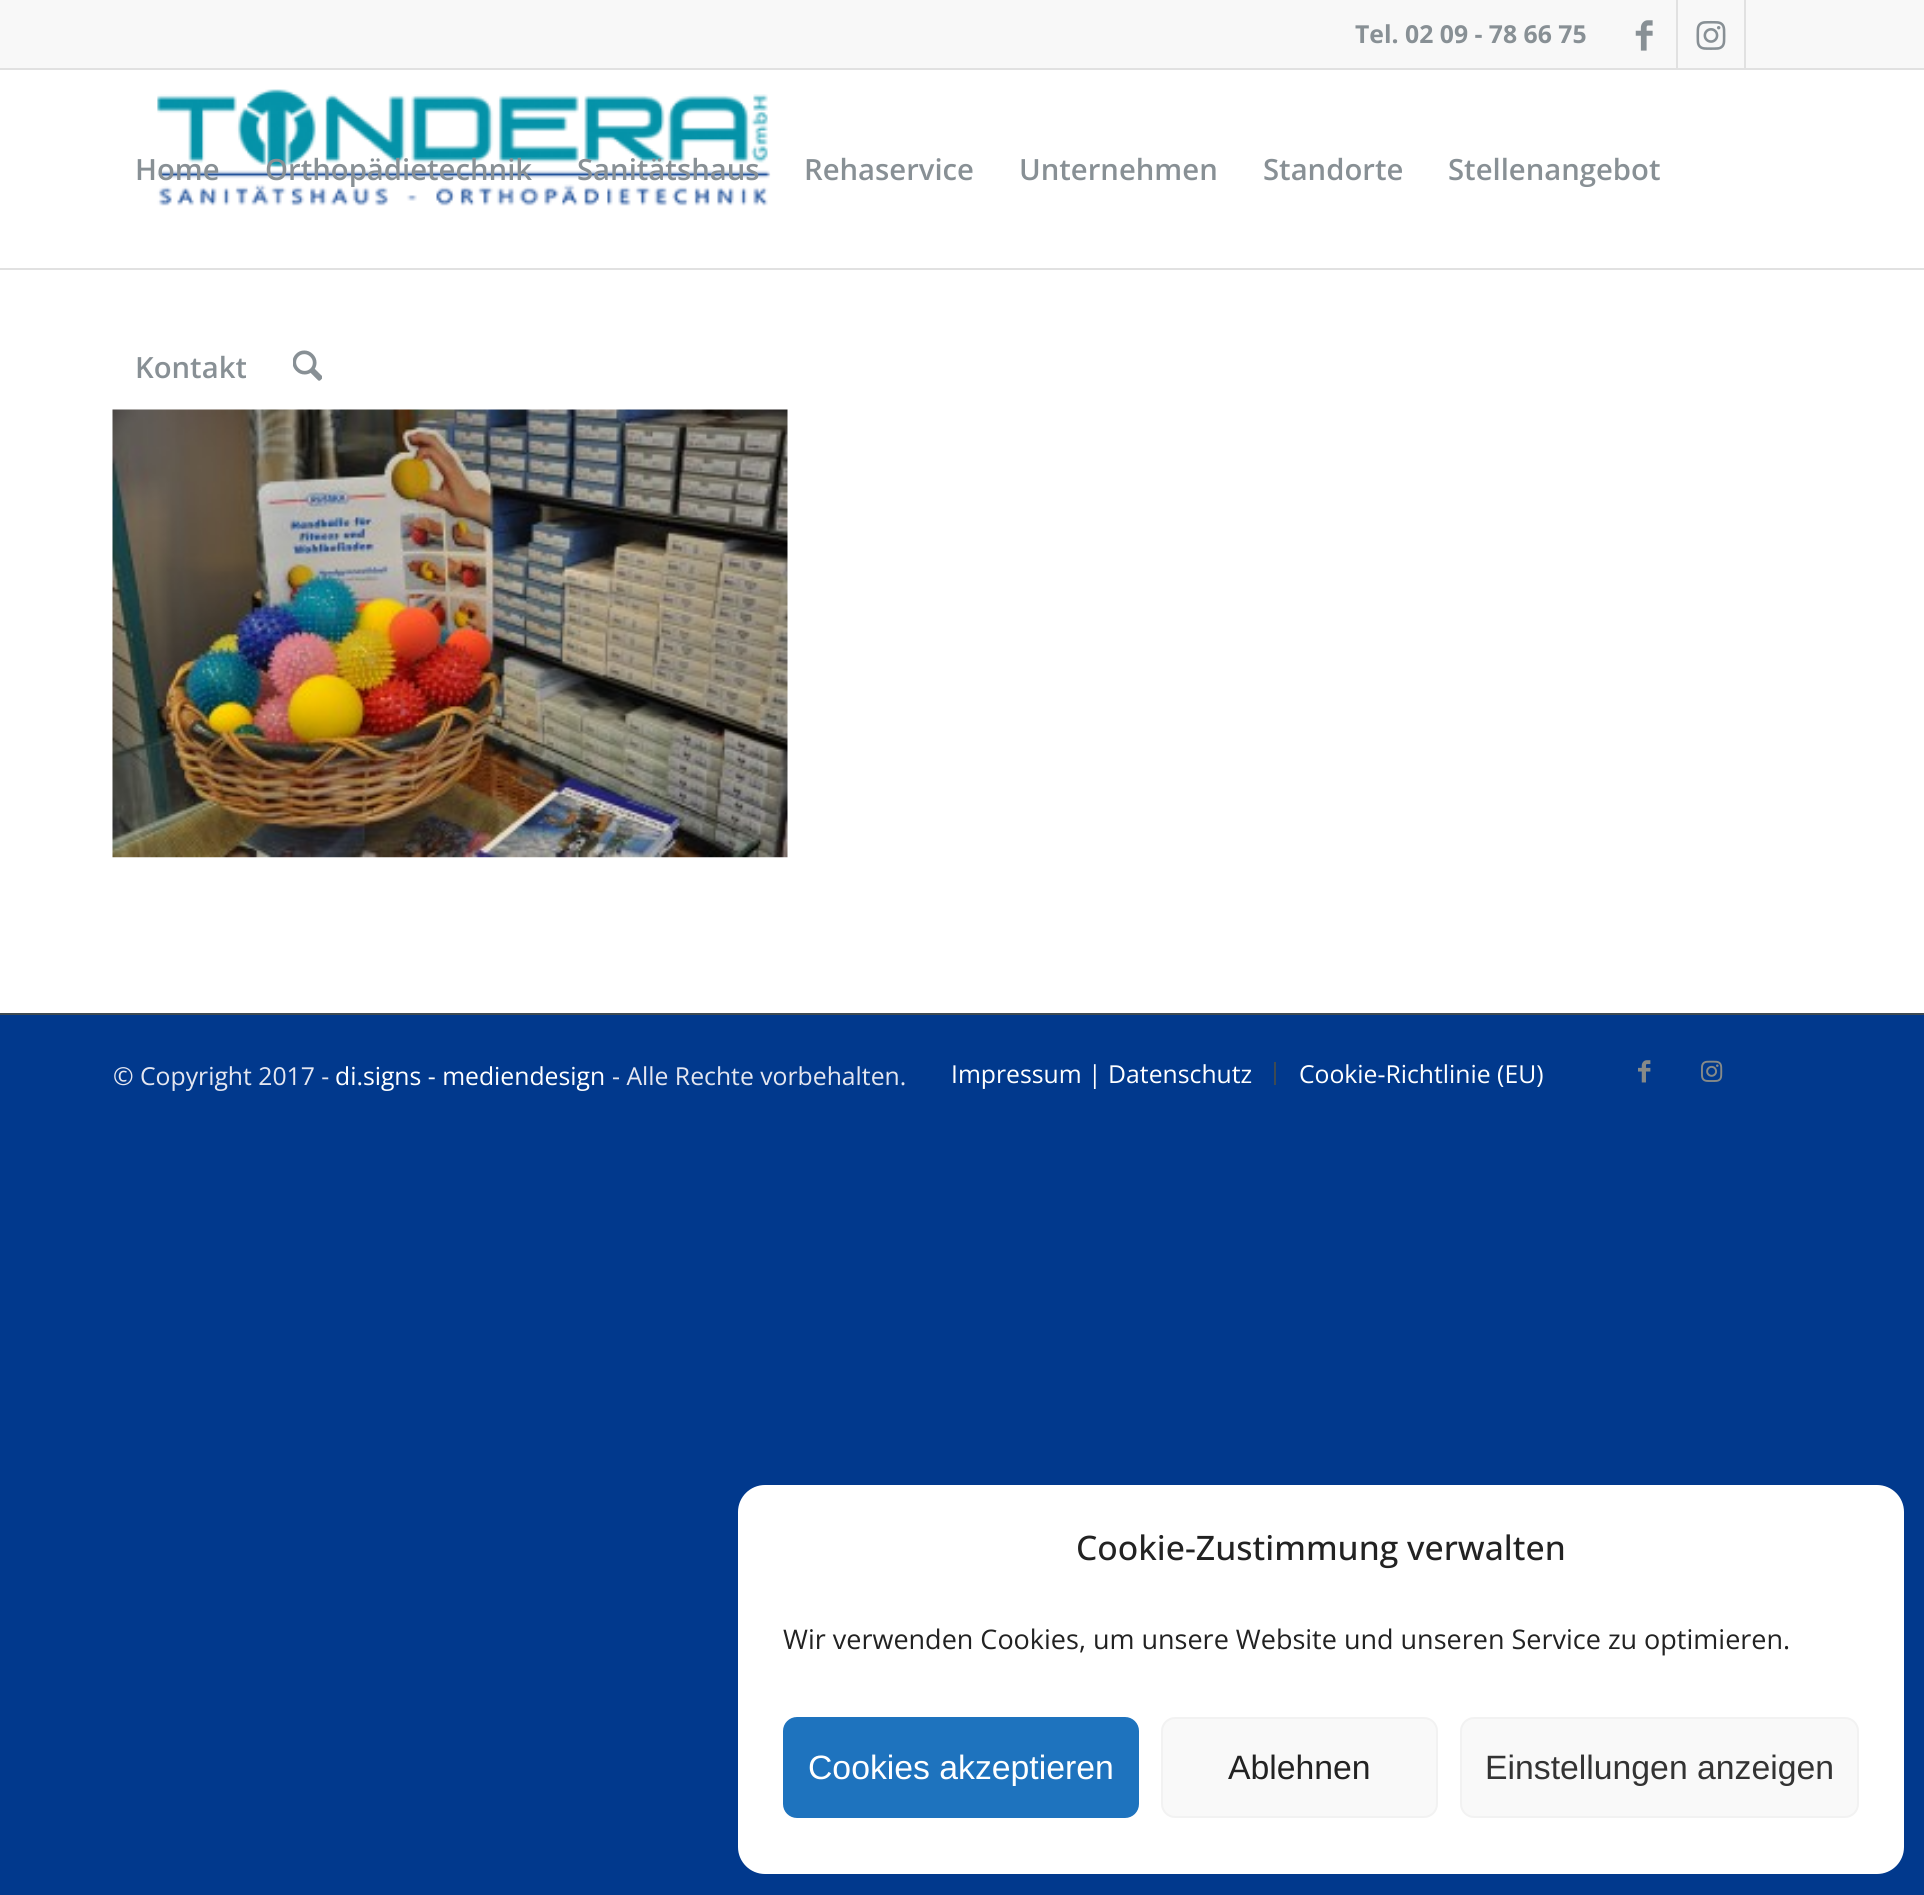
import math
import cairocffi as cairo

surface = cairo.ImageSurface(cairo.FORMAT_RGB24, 1924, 1895)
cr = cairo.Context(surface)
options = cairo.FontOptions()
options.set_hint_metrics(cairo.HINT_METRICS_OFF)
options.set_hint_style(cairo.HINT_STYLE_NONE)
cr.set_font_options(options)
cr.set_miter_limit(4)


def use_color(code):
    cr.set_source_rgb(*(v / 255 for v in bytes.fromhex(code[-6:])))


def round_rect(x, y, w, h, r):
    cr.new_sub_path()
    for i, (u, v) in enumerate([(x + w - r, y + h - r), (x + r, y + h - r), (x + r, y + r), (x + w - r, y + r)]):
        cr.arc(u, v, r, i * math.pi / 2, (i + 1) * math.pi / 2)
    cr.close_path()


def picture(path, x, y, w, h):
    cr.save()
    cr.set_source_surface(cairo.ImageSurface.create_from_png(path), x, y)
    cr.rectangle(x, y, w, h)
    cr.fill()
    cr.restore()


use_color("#01398d")
cr.paint()
use_color("#ffffff")
cr.rectangle(0, 70, 1924, 943)
cr.fill()
use_color("#f8f8f8")
cr.rectangle(0, 0, 1924, 68)
cr.fill()
use_color("#e1e1e1")
cr.rectangle(0, 68, 1924, 2)
cr.fill()
cr.select_font_face("Open Sans", cairo.FONT_SLANT_NORMAL, cairo.FONT_WEIGHT_BOLD)
cr.set_font_size(24.75)
use_color("#889095")
cr.move_to(1355, 43)
cr.show_text("Tel. 02 09 - 78 66 75")
use_color("#e1e1e1")
cr.rectangle(1676, 0, 2, 68)
cr.fill()
picture("img1.png", 1635, 20, 18, 31)
cr.rectangle(1744, 0, 2, 68)
cr.fill()
picture("img2.png", 1696, 20, 30, 30)
cr.rectangle(0, 268, 1924, 2)
cr.fill()
picture("img3.png", 157, 89, 614, 117)
cr.select_font_face("Open Sans SemiBold")
cr.set_font_size(29.25)
use_color("#889095")
cr.move_to(135, 180)
cr.show_text("Home")
cr.move_to(265, 180)
cr.show_text("Orthopädietechnik")
cr.move_to(577, 180)
cr.show_text("Sanitätshaus")
cr.move_to(804, 180)
cr.show_text("Rehaservice")
cr.move_to(1019, 180)
cr.show_text("Unternehmen")
cr.move_to(1263, 180)
cr.show_text("Standorte")
cr.move_to(1448, 180)
cr.show_text("Stellenangebot")
cr.move_to(135, 378)
cr.show_text("Kontakt")
picture("img4.png", 293, 350, 29, 31)
picture("img5.png", 112, 409, 676, 449)
use_color("#3e4a52")
cr.rectangle(0, 1013, 1924, 2)
cr.fill()
cr.select_font_face("Open Sans")
cr.set_font_size(24.75)
use_color("#e4e6f0")
cr.move_to(113, 1085)
cr.show_text("© Copyright 2017 -")
use_color("#ffffff")
cr.move_to(335, 1085)
cr.show_text("di.signs - mediendesign")
use_color("#e4e6f0")
cr.move_to(612, 1085)
cr.show_text("- Alle Rechte vorbehalten.")
use_color("#ffffff")
cr.move_to(951, 1083)
cr.show_text("Impressum | Datenschutz")
use_color("#3e4a52")
cr.rectangle(1274, 1062, 2, 23)
cr.fill()
use_color("#ffffff")
cr.move_to(1299, 1083)
cr.show_text("Cookie-Richtlinie (EU)")
picture("img6.png", 1638, 1060, 13, 23)
picture("img7.png", 1701, 1060, 22, 22)
round_rect(738, 1485, 1166, 389, 27)
cr.fill()
cr.select_font_face("Open Sans Medium")
cr.set_font_size(33.75)
use_color("#222222")
cr.move_to(1076, 1560)
cr.show_text("Cookie-Zustimmung verwalten")
cr.select_font_face("Open Sans")
cr.set_font_size(27)
cr.move_to(783, 1649)
cr.show_text("Wir verwenden Cookies, um unsere Website und unseren Service zu optimieren.")
use_color("#1e73be")
round_rect(784, 1718, 354, 99, 13)
cr.fill_preserve()
cr.stroke()
cr.select_font_face("Liberation Sans")
cr.set_font_size(33.75)
use_color("#ffffff")
cr.move_to(808, 1779)
cr.show_text("Cookies akzeptieren")
use_color("#f9f9f9")
round_rect(1162, 1718, 275, 99, 13)
cr.fill_preserve()
use_color("#f2f2f2")
cr.stroke()
use_color("#222222")
cr.move_to(1228, 1779)
cr.show_text("Ablehnen")
use_color("#f9f9f9")
round_rect(1461, 1718, 397, 99, 13)
cr.fill_preserve()
use_color("#f2f2f2")
cr.stroke()
use_color("#333333")
cr.move_to(1485, 1779)
cr.show_text("Einstellungen anzeigen")
surface.write_to_png("result.png")
